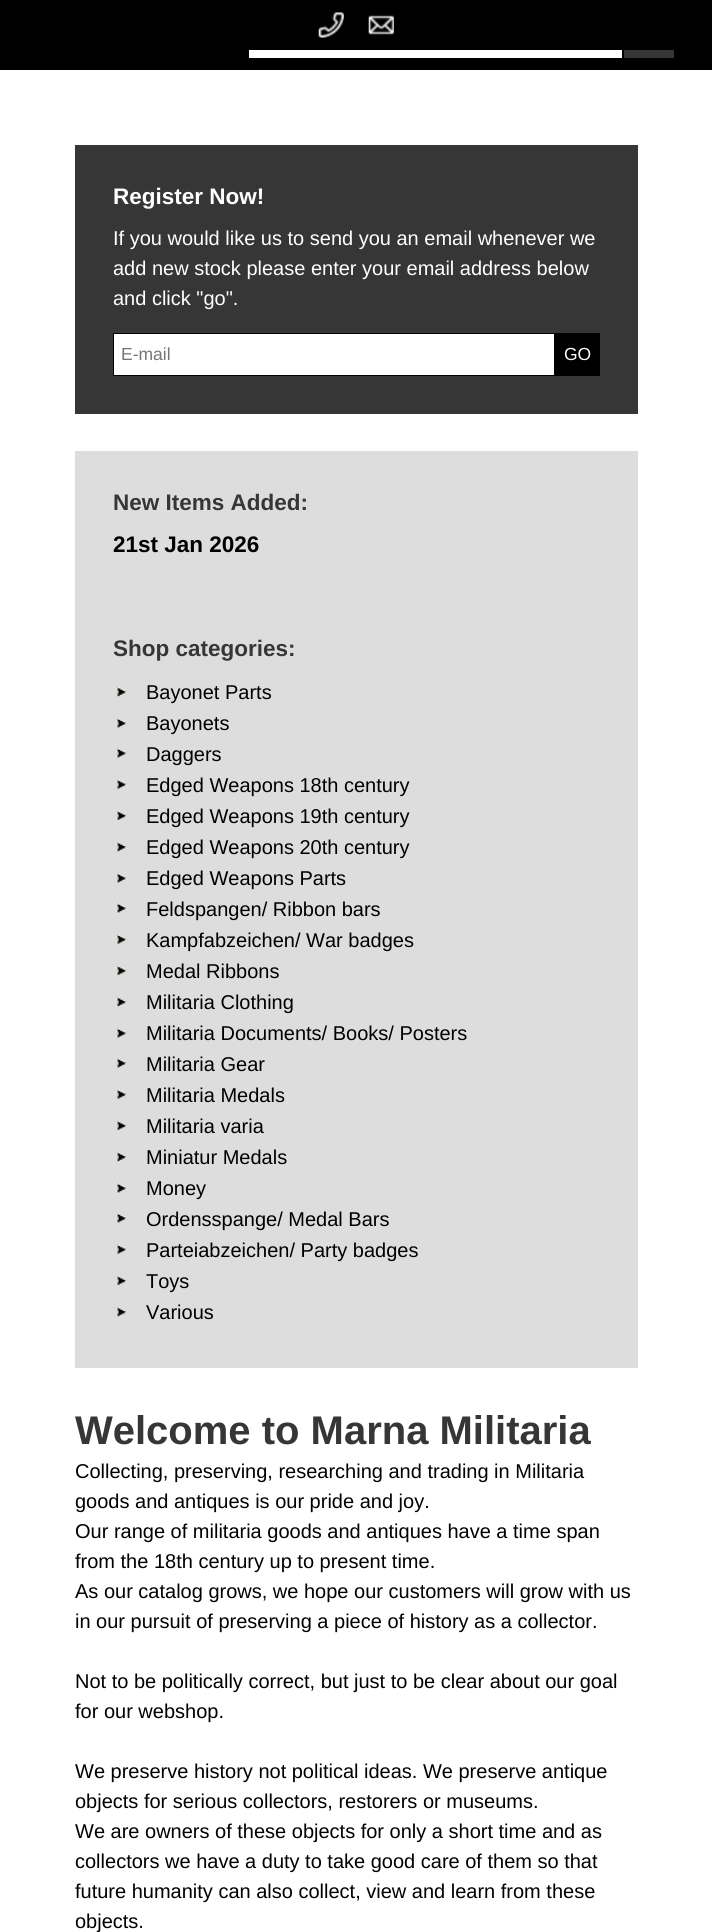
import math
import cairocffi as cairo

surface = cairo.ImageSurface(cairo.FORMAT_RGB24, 712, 1932)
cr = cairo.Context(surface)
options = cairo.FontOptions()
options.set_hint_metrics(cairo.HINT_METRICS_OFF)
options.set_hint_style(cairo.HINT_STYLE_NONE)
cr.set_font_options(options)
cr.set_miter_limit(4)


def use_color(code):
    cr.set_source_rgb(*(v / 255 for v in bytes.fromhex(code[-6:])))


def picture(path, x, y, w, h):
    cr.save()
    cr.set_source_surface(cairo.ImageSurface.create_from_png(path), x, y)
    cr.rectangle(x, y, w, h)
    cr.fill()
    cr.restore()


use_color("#000000")
cr.paint()
picture("img1.png", 318, 12, 26, 26)
picture("img2.png", 368, 15, 26, 20)
use_color("#ffffff")
cr.rectangle(249, 50, 373, 8)
cr.fill()
use_color("#363636")
cr.rectangle(624, 50, 50, 8)
cr.fill()
use_color("#ffffff")
cr.rectangle(0, 70, 712, 1862)
cr.fill()
use_color("#363636")
cr.rectangle(75, 145, 563, 269)
cr.fill()
cr.select_font_face("Liberation Sans", cairo.FONT_SLANT_NORMAL, cairo.FONT_WEIGHT_BOLD)
cr.set_font_size(22.5)
use_color("#ffffff")
cr.move_to(113, 204)
cr.show_text("Register Now!")
cr.select_font_face("Liberation Sans")
cr.set_font_size(20)
cr.move_to(113, 245)
cr.show_text("If you would like us to send you an email whenever we")
cr.move_to(113, 275)
cr.show_text("add new stock please enter your email address below")
cr.move_to(113, 305)
cr.show_text("and click \"go\".")
cr.rectangle(113.5, 333.5, 441, 42)
cr.fill_preserve()
use_color("#000000")
cr.set_line_width(1)
cr.stroke()
cr.set_font_size(17.5)
use_color("#757575")
cr.move_to(121, 360)
cr.show_text("E-mail")
use_color("#000000")
cr.rectangle(555, 333, 45, 43)
cr.fill()
use_color("#ffffff")
cr.move_to(564, 360)
cr.show_text("GO")
use_color("#dddddd")
cr.rectangle(75, 451, 563, 917)
cr.fill()
cr.select_font_face("Liberation Sans", cairo.FONT_SLANT_NORMAL, cairo.FONT_WEIGHT_BOLD)
cr.set_font_size(22.5)
use_color("#363636")
cr.move_to(113, 510)
cr.show_text("New Items Added:")
use_color("#000000")
cr.move_to(113, 552)
cr.show_text("21st Jan 2026")
use_color("#363636")
cr.move_to(113, 656)
cr.show_text("Shop categories:")
picture("img3.png", 116, 687, 11, 10)
cr.select_font_face("Liberation Sans")
cr.set_font_size(20)
use_color("#000000")
cr.move_to(146, 699)
cr.show_text("Bayonet Parts")
picture("img4.png", 116, 718, 11, 11)
cr.move_to(146, 730)
cr.show_text("Bayonets")
picture("img4.png", 116, 748, 11, 11)
cr.move_to(146, 761)
cr.show_text("Daggers")
picture("img5.png", 116, 779, 11, 11)
cr.move_to(146, 792)
cr.show_text("Edged Weapons 18th century")
picture("img6.png", 116, 811, 11, 10)
cr.move_to(146, 823)
cr.show_text("Edged Weapons 19th century")
picture("img7.png", 116, 842, 11, 10)
cr.move_to(146, 854)
cr.show_text("Edged Weapons 20th century")
picture("img4.png", 116, 873, 11, 11)
cr.move_to(146, 885)
cr.show_text("Edged Weapons Parts")
picture("img4.png", 116, 903, 11, 11)
cr.move_to(146, 916)
cr.show_text("Feldspangen/ Ribbon bars")
picture("img5.png", 116, 934, 11, 11)
cr.move_to(146, 947)
cr.show_text("Kampfabzeichen/ War badges")
picture("img6.png", 116, 966, 11, 10)
cr.move_to(146, 978)
cr.show_text("Medal Ribbons")
picture("img3.png", 116, 997, 11, 10)
cr.move_to(146, 1009)
cr.show_text("Militaria Clothing")
picture("img4.png", 116, 1028, 11, 11)
cr.move_to(146, 1040)
cr.show_text("Militaria Documents/ Books/ Posters")
picture("img4.png", 116, 1058, 11, 11)
cr.move_to(146, 1071)
cr.show_text("Militaria Gear")
picture("img5.png", 116, 1089, 11, 11)
cr.move_to(146, 1102)
cr.show_text("Militaria Medals")
picture("img6.png", 116, 1121, 11, 10)
cr.move_to(146, 1133)
cr.show_text("Militaria varia")
picture("img3.png", 116, 1152, 11, 10)
cr.move_to(146, 1164)
cr.show_text("Miniatur Medals")
picture("img4.png", 116, 1183, 11, 11)
cr.move_to(146, 1195)
cr.show_text("Money")
picture("img4.png", 116, 1213, 11, 11)
cr.move_to(146, 1226)
cr.show_text("Ordensspange/ Medal Bars")
picture("img5.png", 116, 1244, 11, 11)
cr.move_to(146, 1257)
cr.show_text("Parteiabzeichen/ Party badges")
picture("img6.png", 116, 1276, 11, 10)
cr.move_to(146, 1288)
cr.show_text("Toys")
picture("img3.png", 116, 1307, 11, 10)
cr.move_to(146, 1319)
cr.show_text("Various")
cr.select_font_face("Liberation Sans", cairo.FONT_SLANT_NORMAL, cairo.FONT_WEIGHT_BOLD)
cr.set_font_size(40)
use_color("#363636")
cr.move_to(75, 1444)
cr.show_text("Welcome to Marna Militaria")
cr.select_font_face("Liberation Sans")
cr.set_font_size(20)
use_color("#000000")
cr.move_to(75, 1478)
cr.show_text("Collecting, preserving, researching and trading in Militaria")
cr.move_to(75, 1508)
cr.show_text("goods and antiques is our pride and joy.")
cr.move_to(75, 1538)
cr.show_text("Our range of militaria goods and antiques have a time span")
cr.move_to(75, 1568)
cr.show_text("from the 18th century up to present time.")
cr.move_to(75, 1598)
cr.show_text("As our catalog grows, we hope our customers will grow with us")
cr.move_to(75, 1628)
cr.show_text("in our pursuit of preserving a piece of history as a collector.")
cr.move_to(75, 1688)
cr.show_text("Not to be politically correct, but just to be clear about our goal")
cr.move_to(75, 1718)
cr.show_text("for our webshop.")
cr.move_to(75, 1778)
cr.show_text("We preserve history not political ideas. We preserve antique")
cr.move_to(75, 1808)
cr.show_text("objects for serious collectors, restorers or museums.")
cr.move_to(75, 1838)
cr.show_text("We are owners of these objects for only a short time and as")
cr.move_to(75, 1868)
cr.show_text("collectors we have a duty to take good care of them so that")
cr.move_to(75, 1898)
cr.show_text("future humanity can also collect, view and learn from these")
cr.move_to(75, 1928)
cr.show_text("objects.")
surface.write_to_png("result.png")
